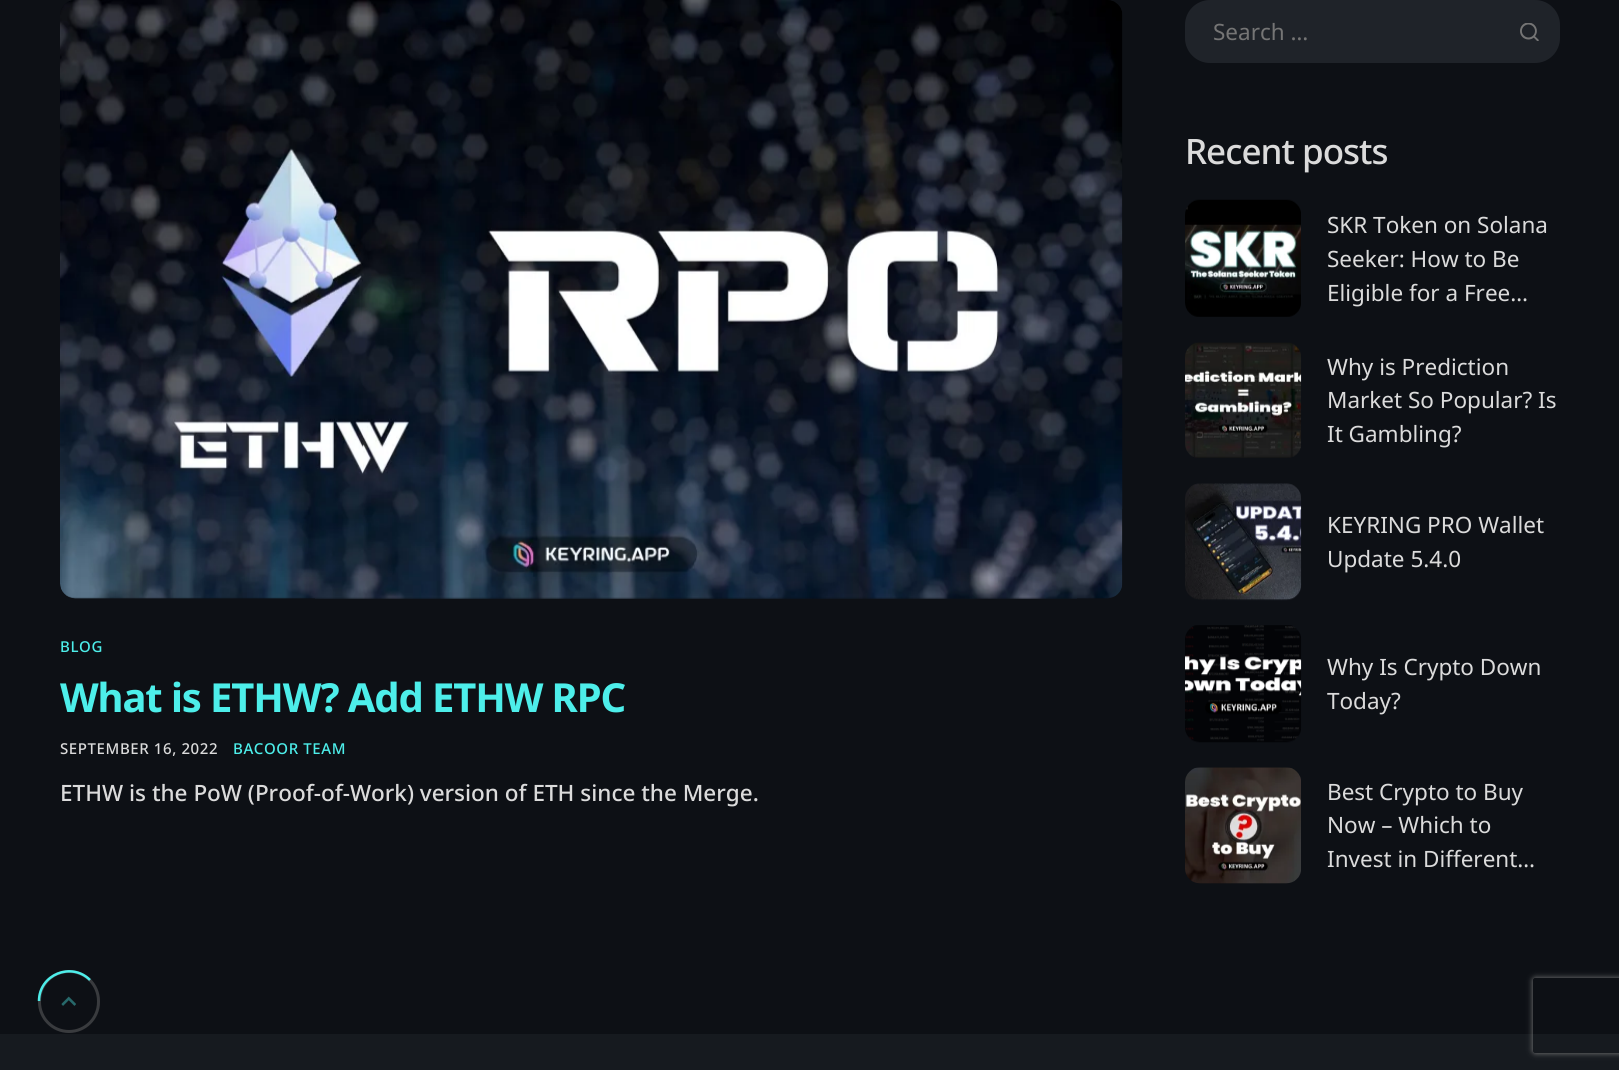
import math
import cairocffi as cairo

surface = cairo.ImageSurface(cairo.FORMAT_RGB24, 1619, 1070)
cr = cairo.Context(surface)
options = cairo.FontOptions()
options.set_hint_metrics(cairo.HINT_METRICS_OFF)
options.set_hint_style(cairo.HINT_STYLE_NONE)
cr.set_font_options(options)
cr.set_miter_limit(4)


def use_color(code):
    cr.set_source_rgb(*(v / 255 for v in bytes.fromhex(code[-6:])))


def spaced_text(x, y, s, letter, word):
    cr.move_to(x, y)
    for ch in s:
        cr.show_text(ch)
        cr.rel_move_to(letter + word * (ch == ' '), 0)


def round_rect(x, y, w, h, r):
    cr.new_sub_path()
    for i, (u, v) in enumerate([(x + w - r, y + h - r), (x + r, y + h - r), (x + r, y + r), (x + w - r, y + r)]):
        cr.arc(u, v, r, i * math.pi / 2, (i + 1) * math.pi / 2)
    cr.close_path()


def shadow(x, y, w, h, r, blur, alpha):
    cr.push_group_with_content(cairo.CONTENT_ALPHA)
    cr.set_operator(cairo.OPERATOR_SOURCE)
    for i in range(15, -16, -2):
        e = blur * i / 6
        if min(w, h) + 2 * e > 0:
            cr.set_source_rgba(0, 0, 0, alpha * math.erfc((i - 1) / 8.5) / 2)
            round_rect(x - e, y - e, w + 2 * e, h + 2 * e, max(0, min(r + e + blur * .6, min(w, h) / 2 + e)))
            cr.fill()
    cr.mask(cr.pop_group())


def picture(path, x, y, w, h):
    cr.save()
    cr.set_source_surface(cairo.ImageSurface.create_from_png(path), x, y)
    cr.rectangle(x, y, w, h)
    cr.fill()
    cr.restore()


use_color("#0d1015")
cr.paint()
picture("img1.png", 60, 0, 1063, 599)
cr.select_font_face("Noto Sans Medium")
cr.set_font_size(15)
use_color("#4deeea")
spaced_text(60, 652, "BLOG", 0.6, 0)
cr.select_font_face("Noto Sans", cairo.FONT_SLANT_NORMAL, cairo.FONT_WEIGHT_BOLD)
cr.set_font_size(40)
spaced_text(60, 712, "What is ETHW? Add ETHW RPC", -1.1, 0)
cr.select_font_face("Noto Sans Medium")
cr.set_font_size(15)
use_color("#dbdbdb")
spaced_text(60, 754, "SEPTEMBER 16, 2022", 0.6, 0)
use_color("#4deeea")
spaced_text(233, 754, "BACOOR TEAM", 0.6, 0)
cr.set_font_size(22.5)
use_color("#dbdbdb")
cr.move_to(60, 801)
cr.show_text("ETHW is the PoW (Proof-of-Work) version of ETH since the Merge.")
use_color("#1f2329")
round_rect(1186.5, 1.5, 372, 60, 23.5)
cr.fill_preserve()
cr.set_line_width(3)
cr.stroke()
cr.select_font_face("Noto Sans")
use_color("#757575")
cr.move_to(1213, 40)
cr.show_text("Search …")
picture("img2.png", 1520, 23, 19, 18)
cr.select_font_face("Noto Sans Medium")
cr.set_font_size(35)
use_color("#dbdbdb")
spaced_text(1185, 164, "Recent posts", -1, 0)
picture("img3.png", 1185, 199, 116, 118)
cr.select_font_face("Noto Sans")
cr.set_font_size(22.5)
cr.move_to(1327, 233)
cr.show_text("SKR Token on Solana")
cr.move_to(1327, 267)
cr.show_text("Seeker: How to Be")
cr.move_to(1327, 301)
cr.show_text("Eligible for a Free…")
picture("img4.png", 1185, 342, 117, 116)
cr.move_to(1327, 375)
cr.show_text("Why is Prediction")
cr.move_to(1327, 408)
cr.show_text("Market So Popular? Is")
cr.move_to(1327, 442)
cr.show_text("It Gambling?")
picture("img5.png", 1185, 483, 117, 118)
cr.move_to(1327, 533)
cr.show_text("KEYRING PRO Wallet")
cr.move_to(1327, 567)
cr.show_text("Update 5.4.0")
picture("img6.png", 1185, 625, 117, 118)
cr.move_to(1327, 675)
cr.show_text("Why Is Crypto Down")
cr.move_to(1327, 709)
cr.show_text("Today?")
picture("img7.png", 1185, 767, 116, 117)
cr.move_to(1327, 800)
cr.show_text("Best Crypto to Buy")
cr.move_to(1327, 833)
cr.show_text("Now – Which to")
cr.move_to(1327, 867)
cr.show_text("Invest in Different…")
gradient = cairo.LinearGradient(810, 1034, 810, 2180)
gradient.add_color_stop_rgba(0, 0.086, 0.102, 0.122, 1)
gradient.add_color_stop_rgba(1, 0.051, 0.063, 0.082, 1)
cr.set_source(gradient)
cr.rectangle(0, 1034, 1619, 36)
cr.fill()
round_rect(39.5, 971.5, 59, 60, 29.5)
use_color("#393b3e")
cr.stroke()
picture("img8.png", 61, 996, 15, 10)
cr.save()
cr.new_path()
cr.move_to(37.5, 1032.5)
cr.line_to(37.5, 970)
cr.line_to(100, 970)
cr.line_to(100, 1032.5)
cr.close_path()
cr.clip()
cr.new_path()
cr.move_to(39, 1001)
cr.curve_to(39, 974.5, 71.5, 961.5, 90, 980)
use_color("#4deeea")
cr.set_line_width(2.5)
cr.stroke()
cr.restore()
cr.save()
cr.set_fill_rule(cairo.FILL_RULE_EVEN_ODD)
cr.new_path()
cr.move_to(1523, 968)
cr.line_to(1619, 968)
cr.line_to(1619, 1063)
cr.line_to(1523, 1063)
cr.close_path()
cr.move_to(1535.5, 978)
cr.line_to(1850.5, 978)
cr.curve_to(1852, 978, 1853, 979, 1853, 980.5)
cr.line_to(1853, 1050.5)
cr.curve_to(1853, 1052, 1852, 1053, 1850.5, 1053)
cr.line_to(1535.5, 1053)
cr.curve_to(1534, 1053, 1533, 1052, 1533, 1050.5)
cr.line_to(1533, 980.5)
cr.curve_to(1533, 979, 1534, 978, 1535.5, 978)
cr.close_path()
cr.clip()
use_color("#808080")
shadow(1533, 978, 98, 75, 2.5, 3, 1)
cr.restore()
surface.write_to_png("result.png")
